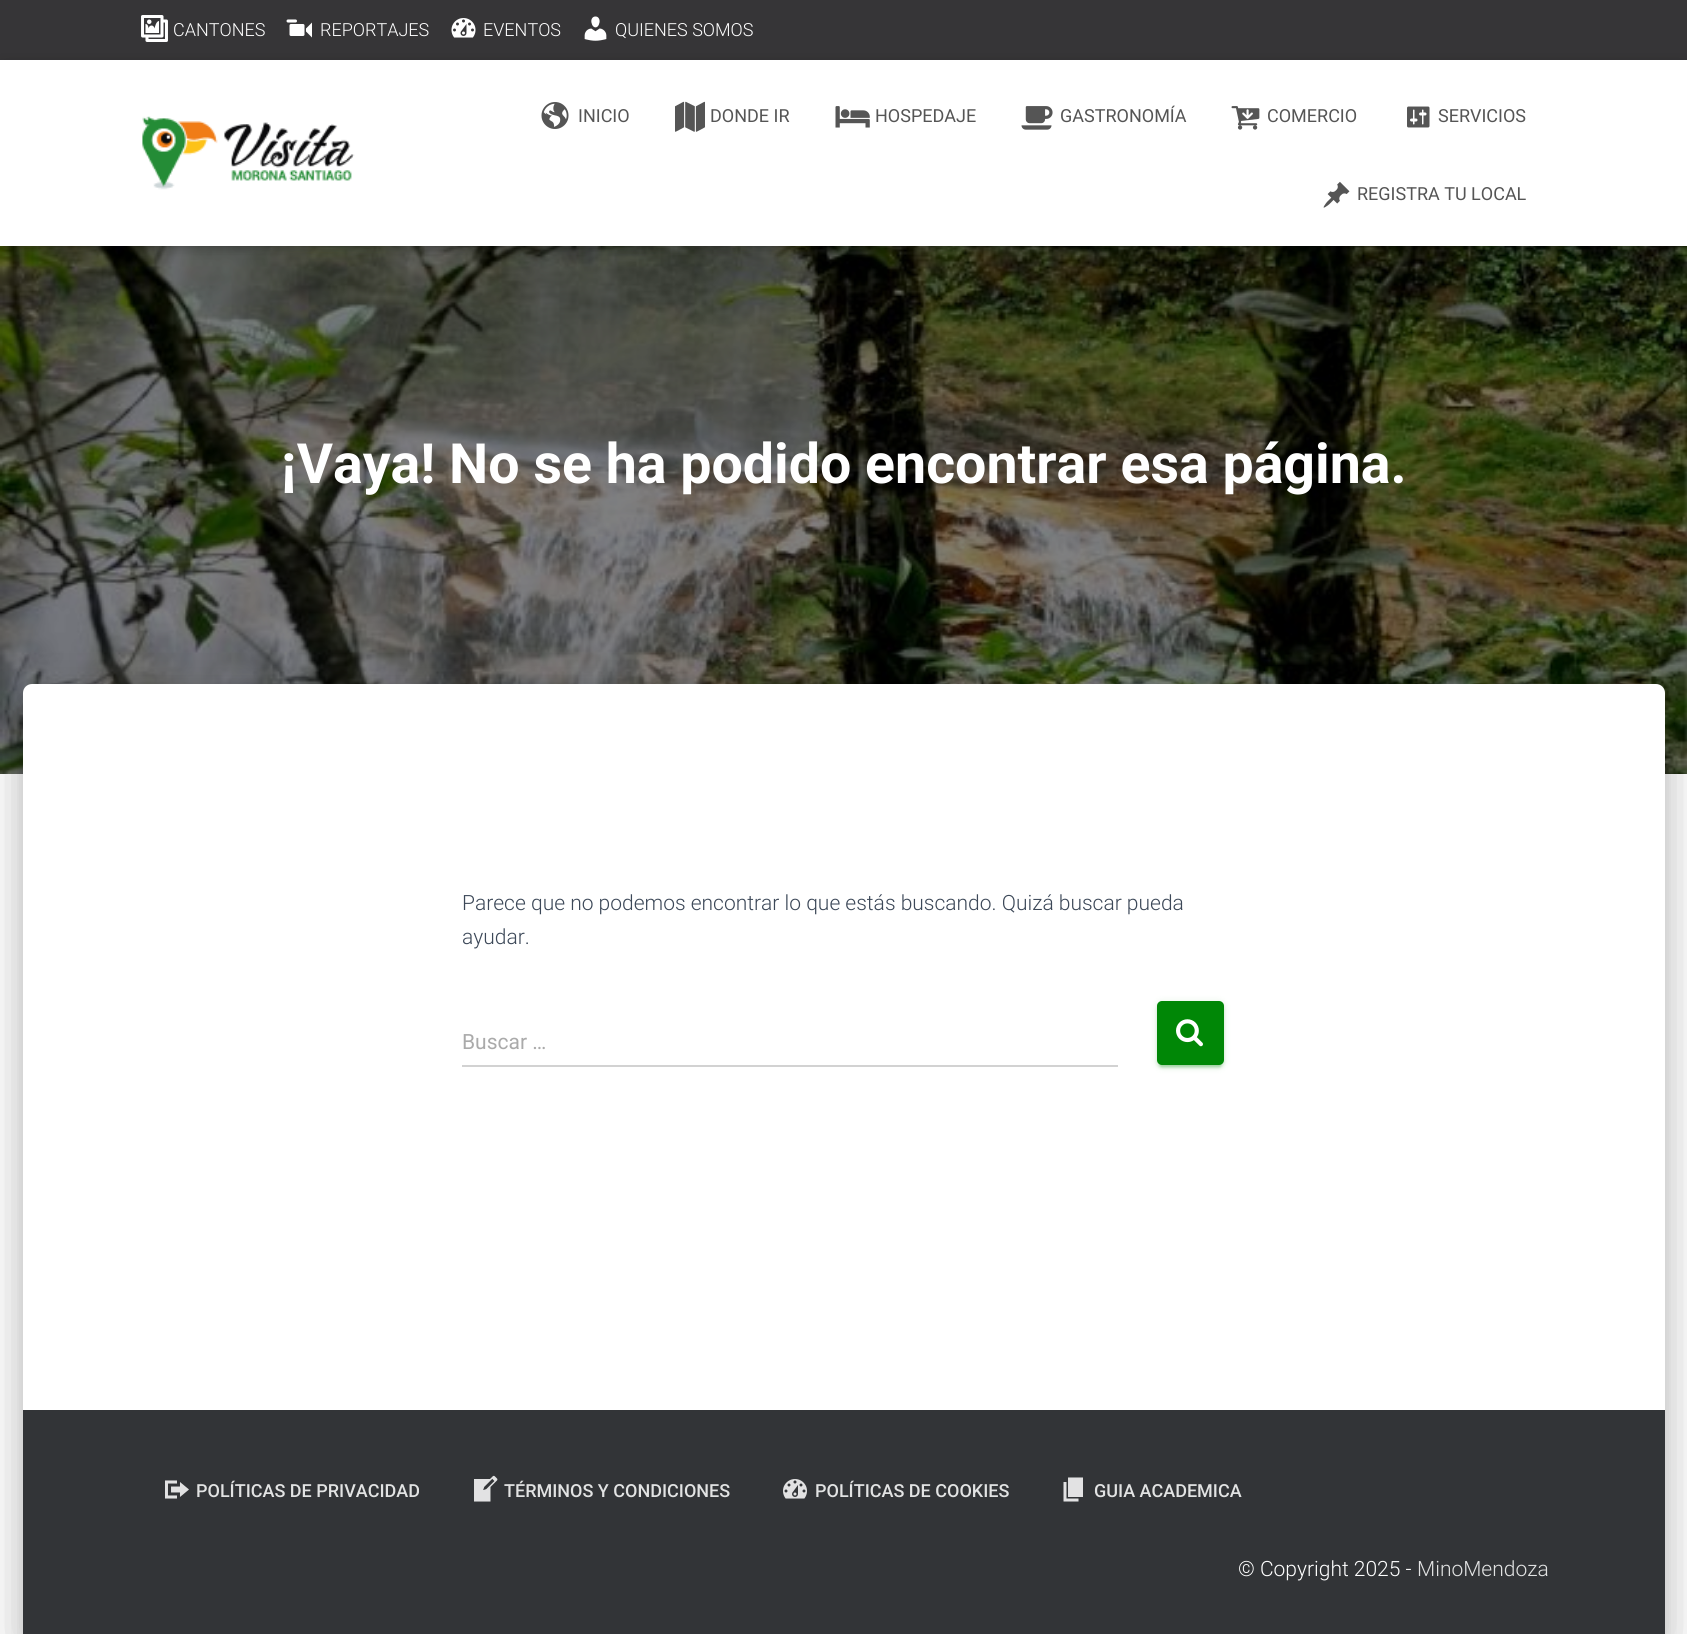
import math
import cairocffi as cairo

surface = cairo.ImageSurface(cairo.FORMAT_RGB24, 1687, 1634)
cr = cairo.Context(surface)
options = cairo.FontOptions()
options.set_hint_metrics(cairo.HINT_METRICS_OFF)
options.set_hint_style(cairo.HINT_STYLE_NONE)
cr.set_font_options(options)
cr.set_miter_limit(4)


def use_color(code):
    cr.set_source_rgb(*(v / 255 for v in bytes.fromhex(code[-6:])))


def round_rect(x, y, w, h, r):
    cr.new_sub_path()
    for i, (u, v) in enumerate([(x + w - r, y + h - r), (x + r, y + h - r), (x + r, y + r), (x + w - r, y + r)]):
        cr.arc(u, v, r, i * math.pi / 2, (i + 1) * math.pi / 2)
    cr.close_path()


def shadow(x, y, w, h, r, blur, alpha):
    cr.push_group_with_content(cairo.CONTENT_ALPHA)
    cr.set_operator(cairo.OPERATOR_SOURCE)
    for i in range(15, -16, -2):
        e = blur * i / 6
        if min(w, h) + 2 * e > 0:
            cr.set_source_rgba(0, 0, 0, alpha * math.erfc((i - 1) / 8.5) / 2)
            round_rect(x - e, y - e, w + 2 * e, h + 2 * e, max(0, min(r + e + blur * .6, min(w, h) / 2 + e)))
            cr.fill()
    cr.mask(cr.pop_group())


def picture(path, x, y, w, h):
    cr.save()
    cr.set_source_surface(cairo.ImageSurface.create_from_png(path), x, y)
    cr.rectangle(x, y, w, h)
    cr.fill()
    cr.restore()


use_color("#ffffff")
cr.paint()
use_color("#363537")
cr.rectangle(0, 0, 1687, 60)
cr.fill()
picture("img1.png", 141, 15, 27, 27)
cr.select_font_face("Roboto Light")
cr.set_font_size(18)
use_color("#ffffff")
cr.move_to(173, 36)
cr.show_text("CANTONES")
picture("img2.png", 286, 19, 26, 19)
cr.move_to(320, 36)
cr.show_text("REPORTAJES")
picture("img3.png", 451, 18, 25, 20)
cr.move_to(483, 36)
cr.show_text("EVENTOS")
picture("img4.png", 584, 16, 23, 25)
cr.move_to(615, 36)
cr.show_text("QUIENES SOMOS")
picture("img13.png", 0, 246, 1687, 528)
use_color("#000000")
shadow(3, 69, 1682, 180, 0, 4, 0.1)
shadow(0, 62, 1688, 186, 0, 7.5, 0.12)
shadow(9, 71, 1670, 168, 0, 7.5, 0.42)
use_color("#ffffff")
cr.rectangle(0, 60, 1687, 186)
cr.fill()
picture("img5.png", 142, 116, 213, 74)
picture("img6.png", 541, 102, 28, 27)
cr.select_font_face("Roboto")
use_color("#555555")
cr.move_to(578, 122)
cr.show_text("INICIO")
picture("img7.png", 675, 101, 30, 31)
cr.move_to(710, 122)
cr.show_text("DONDE IR")
picture("img8.png", 835, 106, 35, 22)
cr.move_to(875, 122)
cr.show_text("HOSPEDAJE")
picture("img9.png", 1021, 106, 32, 24)
cr.move_to(1060, 122)
cr.show_text("GASTRONOMÍA")
picture("img10.png", 1231, 106, 29, 24)
cr.move_to(1267, 122)
cr.show_text("COMERCIO")
picture("img11.png", 1407, 106, 23, 22)
cr.move_to(1438, 122)
cr.show_text("SERVICIOS")
picture("img12.png", 1323, 181, 27, 27)
cr.move_to(1357, 200)
cr.show_text("REGISTRA TU LOCAL")
cr.select_font_face("Roboto", cairo.FONT_SLANT_NORMAL, cairo.FONT_WEIGHT_BOLD)
cr.set_font_size(55.5)
use_color("#ffffff")
cr.move_to(281, 483)
cr.show_text("¡Vaya! No se ha podido encontrar esa página.")
use_color("#000000")
shadow(30, 704, 1628, 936, 1.5, 7.5, 0.2)
shadow(15, 686, 1658, 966, 17, 22.5, 0.12)
shadow(20, 705, 1648, 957, 12, 18, 0.14)
use_color("#ffffff")
cr.new_path()
cr.move_to(32, 684)
cr.line_to(1656, 684)
cr.curve_to(1661, 684, 1665, 688, 1665, 693)
cr.line_to(1665, 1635)
cr.line_to(23, 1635)
cr.line_to(23, 693)
cr.curve_to(23, 688, 27, 684, 32, 684)
cr.close_path()
cr.fill()
cr.select_font_face("Roboto Light")
cr.set_font_size(21)
use_color("#3c4858")
cr.move_to(462, 910)
cr.show_text("Parece que no podemos encontrar lo que estás buscando. Quizá buscar pueda")
cr.move_to(462, 944)
cr.show_text("ayudar.")
cr.select_font_face("Roboto")
use_color("#aaaaaa")
cr.move_to(462, 1049)
cr.show_text("Buscar …")
use_color("#d2d2d2")
cr.rectangle(462, 1065, 656, 2)
cr.fill()
use_color("#008706")
shadow(1157, 1002, 67, 65, 5, 4, 0.12)
shadow(1160, 1008, 61, 59, 1.5, 1, 0.2)
shadow(1157, 1004, 67, 64, 5, 1.5, 0.14)
use_color("#008706")
round_rect(1157, 1001, 67, 64, 5)
cr.fill()
picture("img14.png", 1176, 1019, 27, 28)
use_color("#323437")
cr.rectangle(23, 1410, 1642, 224)
cr.fill()
picture("img15.png", 165, 1480, 24, 19)
cr.select_font_face("Roboto Medium")
cr.set_font_size(18)
use_color("#e2e3e3")
cr.move_to(196, 1497)
cr.show_text("POLÍTICAS DE PRIVACIDAD")
picture("img16.png", 474, 1475, 24, 27)
cr.move_to(504, 1497)
cr.show_text("TÉRMINOS Y CONDICIONES")
picture("img17.png", 783, 1479, 24, 20)
cr.move_to(815, 1497)
cr.show_text("POLÍTICAS DE COOKIES")
picture("img18.png", 1063, 1477, 20, 25)
cr.move_to(1094, 1497)
cr.show_text("GUIA ACADEMICA")
cr.select_font_face("Roboto Light")
cr.set_font_size(21)
use_color("#ffffff")
cr.move_to(1238, 1576)
cr.show_text("© Copyright 2025 -")
use_color("#e2e3e3")
cr.move_to(1417, 1576)
cr.show_text("MinoMendoza")
surface.write_to_png("result.png")
